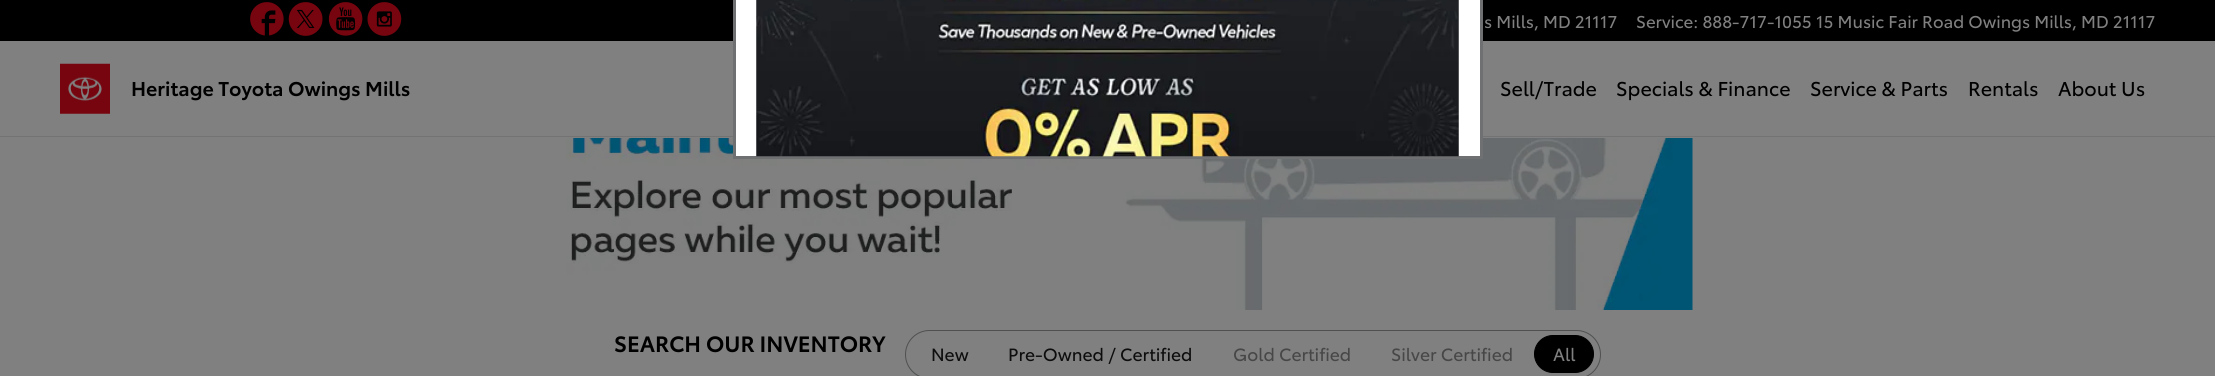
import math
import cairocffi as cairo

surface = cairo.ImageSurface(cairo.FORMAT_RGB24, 2215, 376)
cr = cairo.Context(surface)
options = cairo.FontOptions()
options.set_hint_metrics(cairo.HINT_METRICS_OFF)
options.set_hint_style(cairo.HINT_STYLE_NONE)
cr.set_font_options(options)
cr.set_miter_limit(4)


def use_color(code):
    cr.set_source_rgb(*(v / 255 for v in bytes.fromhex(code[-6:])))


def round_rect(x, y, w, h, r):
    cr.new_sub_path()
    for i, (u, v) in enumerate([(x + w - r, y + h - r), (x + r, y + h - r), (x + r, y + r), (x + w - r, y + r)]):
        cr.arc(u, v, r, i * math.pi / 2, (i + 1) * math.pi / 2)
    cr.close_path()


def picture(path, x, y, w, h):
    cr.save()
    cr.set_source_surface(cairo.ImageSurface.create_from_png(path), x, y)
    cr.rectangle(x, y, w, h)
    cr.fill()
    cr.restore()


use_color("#808080")
cr.paint()
use_color("#737373")
cr.rectangle(0, 136, 2215, 1)
cr.fill()
use_color("#000000")
cr.rectangle(0, 0, 2215, 41)
cr.fill()
picture("img7.png", 566, 138, 1127, 172)
use_color("#ffffff")
cr.rectangle(734.5, -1.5, 747, 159)
cr.fill_preserve()
use_color("#6f7071")
cr.set_line_width(3)
cr.stroke()
picture("img1.png", 756, 0, 703, 157)
cr.select_font_face("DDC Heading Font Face")
cr.set_font_size(16.9)
use_color("#808080")
cr.move_to(1484, 28)
cr.show_text("s Mills, MD 21117")
cr.move_to(1636, 28)
cr.show_text("Service: 888-717-1055")
cr.move_to(1816, 28)
cr.show_text("15 Music Fair Road Owings Mills, MD 21117")
picture("img2.png", 250, 2, 34, 34)
picture("img3.png", 288, 2, 35, 34)
picture("img4.png", 328, 2, 35, 34)
picture("img5.png", 367, 2, 35, 34)
picture("img6.png", 60, 63, 50, 51)
cr.select_font_face("DDC Heading Font Face SemiBold")
cr.set_font_size(19.75)
use_color("#000000")
cr.move_to(131, 96)
cr.show_text("Heritage Toyota Owings Mills")
cr.select_font_face("DDC Heading Font Face")
cr.move_to(1500, 96)
cr.show_text("Sell/Trade")
cr.move_to(1616, 96)
cr.show_text("Specials & Finance")
cr.move_to(1810, 96)
cr.show_text("Service & Parts")
cr.move_to(1968, 96)
cr.show_text("Rentals")
cr.move_to(2058, 96)
cr.show_text("About Us")
cr.select_font_face("DDC Heading Font Face SemiBold")
cr.set_font_size(21.9)
cr.move_to(614, 352)
cr.show_text("SEARCH OUR INVENTORY")
round_rect(905.5, 330.5, 695, 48, 24)
use_color("#4f5050")
cr.set_line_width(1)
cr.stroke()
cr.select_font_face("DDC Heading Font Face")
cr.set_font_size(17.5)
use_color("#0d0d0d")
cr.move_to(931, 361)
cr.show_text("New")
cr.move_to(1008, 361)
cr.show_text("Pre-Owned / Certified")
use_color("#474747")
cr.move_to(1233, 361)
cr.show_text("Gold Certified")
cr.move_to(1391, 361)
cr.show_text("Silver Certified")
use_color("#000000")
round_rect(1534.5, 335.5, 59, 37, 18.5)
cr.fill_preserve()
cr.stroke()
use_color("#808080")
cr.move_to(1553, 361)
cr.show_text("All")
surface.write_to_png("result.png")
